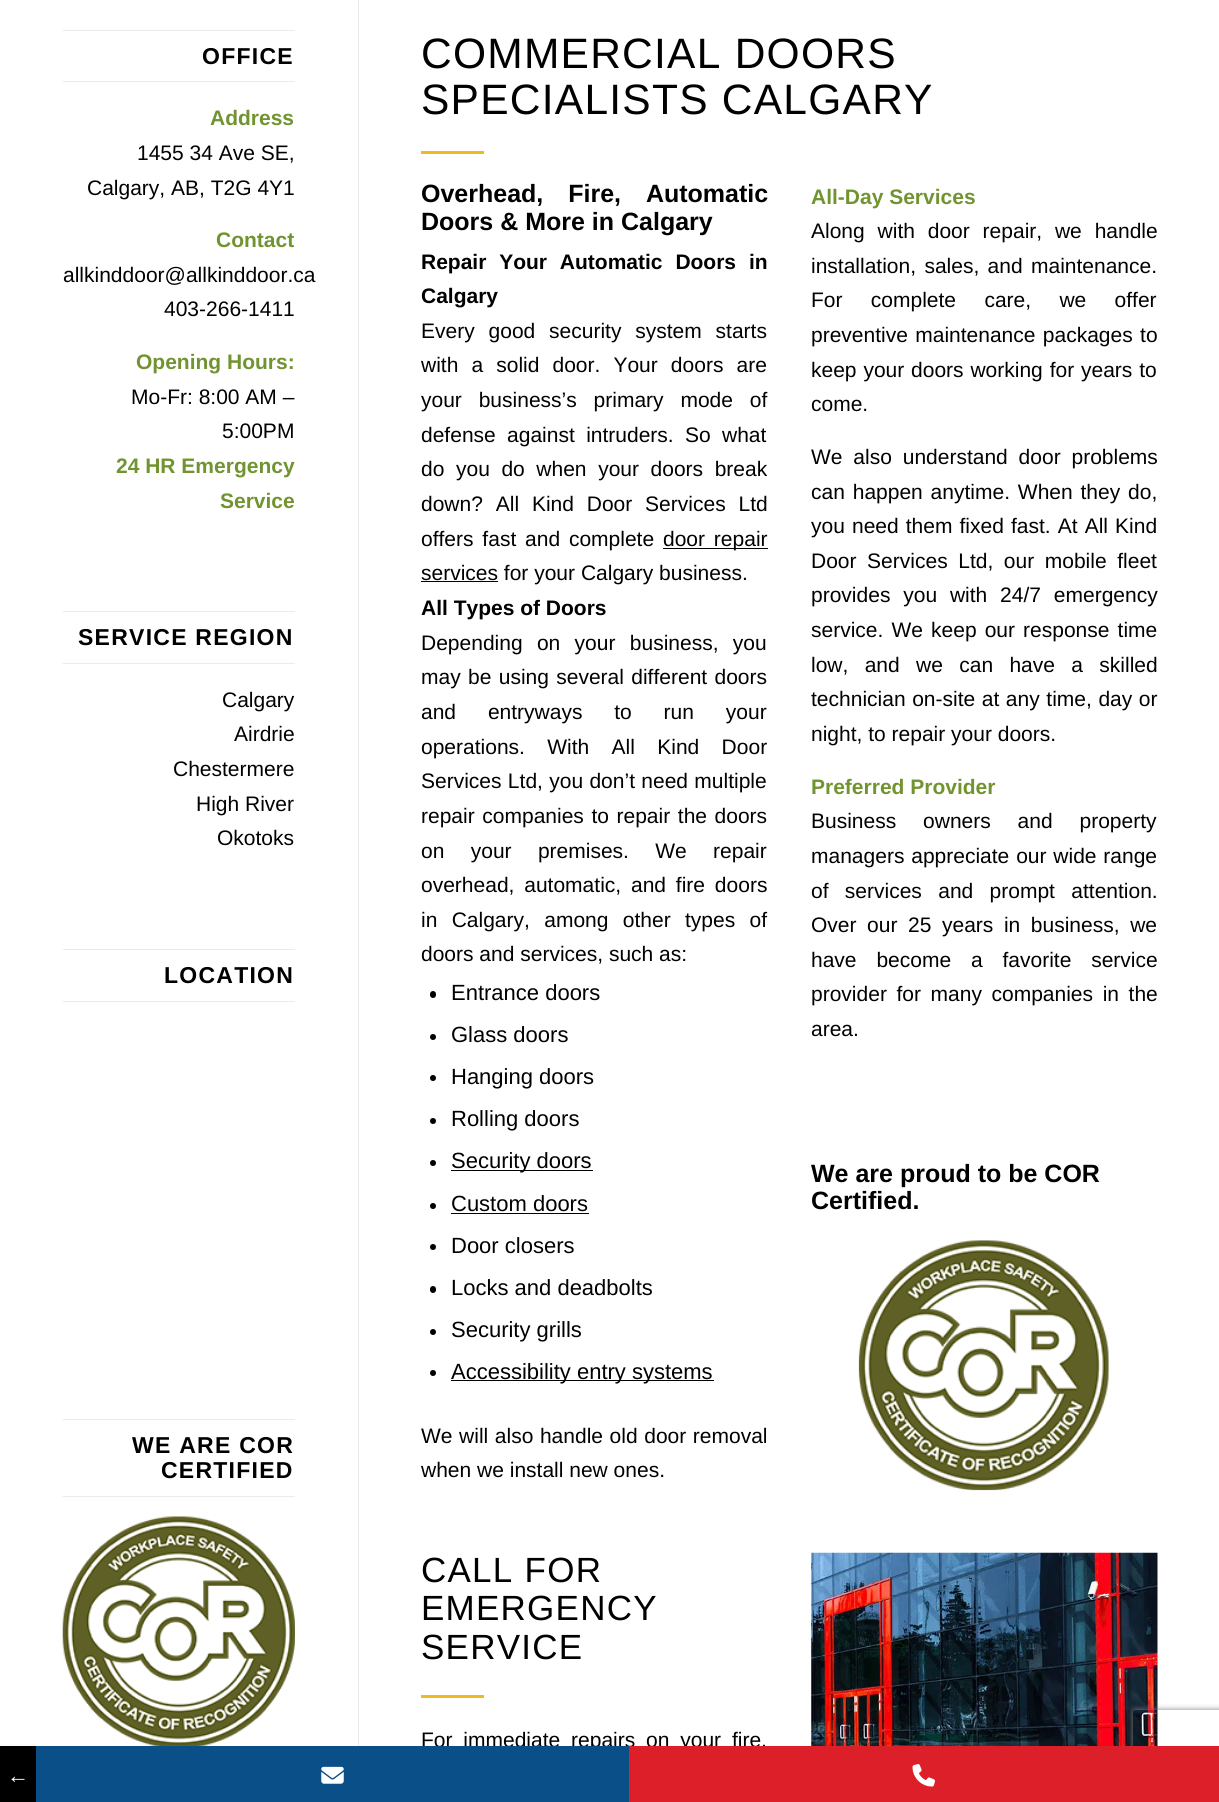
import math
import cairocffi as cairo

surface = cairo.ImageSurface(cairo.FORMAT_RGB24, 1219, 1802)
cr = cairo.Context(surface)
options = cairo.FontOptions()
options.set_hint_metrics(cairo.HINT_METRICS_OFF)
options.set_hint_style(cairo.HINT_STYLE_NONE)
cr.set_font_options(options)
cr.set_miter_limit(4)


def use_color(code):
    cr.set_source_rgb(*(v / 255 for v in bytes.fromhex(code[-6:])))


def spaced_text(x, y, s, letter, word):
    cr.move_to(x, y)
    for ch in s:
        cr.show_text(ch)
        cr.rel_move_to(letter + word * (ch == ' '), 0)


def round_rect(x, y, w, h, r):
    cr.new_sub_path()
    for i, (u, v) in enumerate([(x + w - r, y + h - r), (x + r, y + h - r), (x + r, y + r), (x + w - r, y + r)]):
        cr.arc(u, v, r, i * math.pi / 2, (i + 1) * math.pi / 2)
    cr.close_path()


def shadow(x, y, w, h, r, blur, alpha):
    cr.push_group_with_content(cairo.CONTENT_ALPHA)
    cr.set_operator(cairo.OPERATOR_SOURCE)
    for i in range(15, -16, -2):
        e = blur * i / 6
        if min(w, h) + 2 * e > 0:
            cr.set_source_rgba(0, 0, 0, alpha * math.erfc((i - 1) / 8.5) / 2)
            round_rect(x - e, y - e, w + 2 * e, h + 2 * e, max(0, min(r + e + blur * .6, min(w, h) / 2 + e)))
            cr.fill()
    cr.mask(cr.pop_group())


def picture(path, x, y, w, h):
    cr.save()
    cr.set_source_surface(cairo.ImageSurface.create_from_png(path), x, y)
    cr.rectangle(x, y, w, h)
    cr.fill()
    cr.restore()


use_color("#ffffff")
cr.paint()
use_color("#000000")
shadow(0, 1750, 36, 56, 0, 4, 0.16)
use_color("#000000")
cr.rectangle(0, 1746, 36, 56)
cr.fill()
cr.select_font_face("Liberation Serif")
cr.set_font_size(22)
use_color("#ffffff")
cr.move_to(7, 1783)
cr.show_text("←")
cr.select_font_face("Liberation Sans")
cr.set_font_size(21)
use_color("#000000")
spaced_text(421, 1747, "For immediate repairs on your fire,", 0, 5)
use_color("#0b4f89")
cr.rectangle(36, 1746, 593, 56)
cr.fill()
picture("img1.png", 321, 1766, 23, 18)
picture("img5.png", 811, 1552, 347, 194)
cr.save()
cr.set_fill_rule(cairo.FILL_RULE_EVEN_ODD)
cr.new_path()
cr.move_to(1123, 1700)
cr.line_to(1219, 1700)
cr.line_to(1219, 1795)
cr.line_to(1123, 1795)
cr.close_path()
cr.move_to(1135.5, 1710)
cr.line_to(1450.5, 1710)
cr.curve_to(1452, 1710, 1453, 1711, 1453, 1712.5)
cr.line_to(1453, 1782.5)
cr.curve_to(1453, 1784, 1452, 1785, 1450.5, 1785)
cr.line_to(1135.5, 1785)
cr.curve_to(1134, 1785, 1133, 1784, 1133, 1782.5)
cr.line_to(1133, 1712.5)
cr.curve_to(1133, 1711, 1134, 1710, 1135.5, 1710)
cr.close_path()
cr.clip()
use_color("#808080")
shadow(1133, 1710, 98, 75, 2.5, 3, 1)
cr.restore()
use_color("#dc1f29")
cr.rectangle(629, 1746, 590, 56)
cr.fill()
picture("img2.png", 912, 1764, 23, 23)
use_color("#ebebeb")
cr.rectangle(63, 30, 232, 1)
cr.fill()
cr.rectangle(63, 81, 232, 1)
cr.fill()
cr.select_font_face("Liberation Sans", cairo.FONT_SLANT_NORMAL, cairo.FONT_WEIGHT_BOLD)
cr.set_font_size(23)
use_color("#000000")
spaced_text(202, 64, "OFFICE", 1.25, 0)
cr.set_font_size(21)
use_color("#719430")
cr.move_to(210, 125)
cr.show_text("Address")
cr.select_font_face("Liberation Sans")
use_color("#000000")
cr.move_to(137, 160)
cr.show_text("1455 34 Ave SE,")
cr.move_to(87, 195)
cr.show_text("Calgary, AB, T2G 4Y1")
cr.select_font_face("Liberation Sans", cairo.FONT_SLANT_NORMAL, cairo.FONT_WEIGHT_BOLD)
use_color("#719430")
cr.move_to(216, 247)
cr.show_text("Contact")
cr.select_font_face("Liberation Sans")
use_color("#000000")
cr.move_to(63, 282)
cr.show_text("allkinddoor@allkinddoor.ca")
cr.move_to(164, 316)
cr.show_text("403-266-1411")
cr.select_font_face("Liberation Sans", cairo.FONT_SLANT_NORMAL, cairo.FONT_WEIGHT_BOLD)
use_color("#719430")
cr.move_to(136, 369)
cr.show_text("Opening Hours:")
cr.select_font_face("Liberation Sans")
use_color("#000000")
cr.move_to(131, 404)
cr.show_text("Mo-Fr: 8:00 AM –")
cr.move_to(222, 438)
cr.show_text("5:00PM")
cr.select_font_face("Liberation Sans", cairo.FONT_SLANT_NORMAL, cairo.FONT_WEIGHT_BOLD)
use_color("#719430")
cr.move_to(116, 473)
cr.show_text("24 HR Emergency")
cr.move_to(220, 508)
cr.show_text("Service")
use_color("#ebebeb")
cr.rectangle(63, 611, 232, 1)
cr.fill()
cr.rectangle(63, 663, 232, 1)
cr.fill()
cr.set_font_size(23)
use_color("#000000")
spaced_text(78, 645, "SERVICE REGION", 1.25, 0)
cr.select_font_face("Liberation Sans")
cr.set_font_size(21)
cr.move_to(222, 707)
cr.show_text("Calgary")
cr.move_to(234, 741)
cr.show_text("Airdrie")
cr.move_to(173, 776)
cr.show_text("Chestermere")
cr.move_to(196, 811)
cr.show_text("High River")
cr.move_to(217, 845)
cr.show_text("Okotoks")
use_color("#ebebeb")
cr.rectangle(63, 949, 232, 1)
cr.fill()
cr.rectangle(63, 1001, 232, 1)
cr.fill()
cr.select_font_face("Liberation Sans", cairo.FONT_SLANT_NORMAL, cairo.FONT_WEIGHT_BOLD)
cr.set_font_size(23)
use_color("#000000")
spaced_text(164, 983, "LOCATION", 1.25, 0)
use_color("#ebebeb")
cr.rectangle(63, 1419, 232, 1)
cr.fill()
cr.rectangle(63, 1496, 232, 1)
cr.fill()
use_color("#000000")
spaced_text(132, 1453, "WE ARE COR", 1.25, 0)
spaced_text(161, 1478, "CERTIFIED", 1.25, 0)
picture("img3.png", 62, 1516, 233, 230)
use_color("#ebebeb")
cr.rectangle(358, 0, 1, 1746)
cr.fill()
cr.select_font_face("Liberation Sans")
cr.set_font_size(42.5)
use_color("#000000")
spaced_text(421, 68, "COMMERCIAL DOORS", 1.25, 0)
spaced_text(421, 114, "SPECIALISTS CALGARY", 1.25, 0)
use_color("#efbb20")
cr.rectangle(421, 151, 63, 3)
cr.fill()
cr.select_font_face("Liberation Sans", cairo.FONT_SLANT_NORMAL, cairo.FONT_WEIGHT_BOLD)
cr.set_font_size(25)
use_color("#000000")
spaced_text(421, 202, "Overhead, Fire, Automatic", 0, 18)
cr.move_to(421, 230)
cr.show_text("Doors & More in Calgary")
cr.set_font_size(21)
spaced_text(421, 269, "Repair Your Automatic Doors in", 0, 7)
cr.move_to(421, 303)
cr.show_text("Calgary")
cr.select_font_face("Liberation Sans")
spaced_text(421, 338, "Every good security system starts", 0, 8)
spaced_text(421, 372, "with a solid door. Your doors are", 0, 7.25)
spaced_text(421, 407, "your business’s primary mode of", 0, 11)
spaced_text(421, 442, "defense against intruders. So what", 0, 5.5)
spaced_text(421, 476, "do you do when your doors break", 0, 5.75)
spaced_text(421, 511, "down? All Kind Door Services Ltd", 0, 7)
spaced_text(421, 546, "offers fast and complete", 0, 3)
cr.rectangle(663, 548, 105, 1)
cr.fill()
spaced_text(663, 546, "door repair", 0, 3)
cr.rectangle(421, 581, 77, 1)
cr.fill()
cr.move_to(421, 580)
cr.show_text("services for your Calgary business.")
cr.select_font_face("Liberation Sans", cairo.FONT_SLANT_NORMAL, cairo.FONT_WEIGHT_BOLD)
cr.move_to(421, 615)
cr.show_text("All Types of Doors")
cr.select_font_face("Liberation Sans")
spaced_text(421, 650, "Depending on your business, you", 0, 8.5)
spaced_text(421, 684, "may be using several different doors", 0, 1.5)
spaced_text(421, 719, "and entryways to run your", 0, 26)
spaced_text(421, 754, "operations. With All Kind Door", 0, 16.5)
spaced_text(421, 788, "Services Ltd, you don’t need multiple", 0, 0.5)
spaced_text(421, 823, "repair companies to repair the doors", 0, 1.75)
spaced_text(421, 858, "on your premises. We repair", 0, 20.5)
spaced_text(421, 892, "overhead, automatic, and fire doors", 0, 4)
spaced_text(421, 927, "in Calgary, among other types of", 0, 8.5)
cr.move_to(421, 961)
cr.show_text("doors and services, such as:")
round_rect(430, 991, 6, 7, 3)
cr.fill()
cr.set_font_size(22)
cr.move_to(451, 1000)
cr.show_text("Entrance doors")
cr.new_path()
cr.arc(433, 1037, 3, 0, 2 * math.pi)
cr.fill()
cr.move_to(451, 1042)
cr.show_text("Glass doors")
cr.new_path()
cr.arc(433, 1078, 3, 0, 2 * math.pi)
cr.fill()
cr.move_to(451, 1084)
cr.show_text("Hanging doors")
cr.new_path()
cr.arc(433, 1121, 3, 0, 2 * math.pi)
cr.fill()
cr.move_to(451, 1126)
cr.show_text("Rolling doors")
cr.new_path()
cr.arc(433, 1163, 3, 0, 2 * math.pi)
cr.fill()
cr.rectangle(451, 1170, 142, 1)
cr.fill()
cr.move_to(451, 1168)
cr.show_text("Security doors")
cr.new_path()
cr.arc(433, 1206, 3, 0, 2 * math.pi)
cr.fill()
cr.move_to(451, 1211)
cr.show_text("Custom doors")
cr.rectangle(451, 1213, 138, 1)
cr.fill()
cr.arc(433, 1247, 3, 0, 2 * math.pi)
cr.fill()
cr.move_to(451, 1253)
cr.show_text("Door closers")
round_rect(430, 1286, 6, 7, 3)
cr.fill()
cr.move_to(451, 1295)
cr.show_text("Locks and deadbolts")
cr.new_path()
cr.arc(433, 1332, 3, 0, 2 * math.pi)
cr.fill()
cr.move_to(451, 1337)
cr.show_text("Security grills")
cr.new_path()
cr.arc(433, 1373, 3, 0, 2 * math.pi)
cr.fill()
cr.rectangle(451, 1380, 263, 1)
cr.fill()
cr.move_to(451, 1379)
cr.show_text("Accessibility entry systems")
cr.set_font_size(21)
spaced_text(421, 1443, "We will also handle old door removal", 0, 0.75)
cr.move_to(421, 1477)
cr.show_text("when we install new ones.")
cr.select_font_face("Liberation Sans", cairo.FONT_SLANT_NORMAL, cairo.FONT_WEIGHT_BOLD)
use_color("#719430")
cr.move_to(811, 204)
cr.show_text("All-Day Services")
cr.select_font_face("Liberation Sans")
use_color("#000000")
spaced_text(811, 238, "Along with door repair, we handle", 0, 7)
spaced_text(811, 273, "installation, sales, and maintenance.", 0, 2.5)
spaced_text(811, 307, "For complete care, we offer", 0, 22.5)
spaced_text(811, 342, "preventive maintenance packages to", 0, 1.5)
spaced_text(811, 377, "keep your doors working for years to", 0, 1)
cr.move_to(811, 411)
cr.show_text("come.")
spaced_text(811, 464, "We also understand door problems", 0, 5)
spaced_text(811, 499, "can happen anytime. When they do,", 0, 2)
spaced_text(811, 533, "you need them fixed fast. At All Kind", 0, 1.25)
spaced_text(811, 568, "Door Services Ltd, our mobile fleet", 0, 4.75)
spaced_text(811, 602, "provides you with 24/7 emergency", 0, 7)
spaced_text(811, 637, "service. We keep our response time", 0, 2.25)
spaced_text(811, 672, "low, and we can have a skilled", 0, 10.5)
spaced_text(811, 706, "technician on-site at any time, day or", 0, 0.75)
cr.move_to(811, 741)
cr.show_text("night, to repair your doors.")
cr.select_font_face("Liberation Sans", cairo.FONT_SLANT_NORMAL, cairo.FONT_WEIGHT_BOLD)
use_color("#719430")
cr.move_to(811, 794)
cr.show_text("Preferred Provider")
cr.select_font_face("Liberation Sans")
use_color("#000000")
spaced_text(811, 828, "Business owners and property", 0, 21)
spaced_text(811, 863, "managers appreciate our wide range", 0, 1)
spaced_text(811, 898, "of services and prompt attention.", 0, 10.5)
spaced_text(811, 932, "Over our 25 years in business, we", 0, 4.75)
spaced_text(811, 967, "have become a favorite service", 0, 14)
spaced_text(811, 1001, "provider for many companies in the", 0, 3.75)
cr.move_to(811, 1036)
cr.show_text("area.")
cr.select_font_face("Liberation Sans", cairo.FONT_SLANT_NORMAL, cairo.FONT_WEIGHT_BOLD)
cr.set_font_size(25)
cr.move_to(811, 1182)
cr.show_text("We are proud to be COR")
cr.move_to(811, 1209)
cr.show_text("Certified.")
picture("img4.png", 858, 1240, 251, 251)
cr.select_font_face("Liberation Sans")
cr.set_font_size(35)
spaced_text(421, 1582, "CALL FOR", 1.25, 0)
spaced_text(421, 1620, "EMERGENCY", 1.25, 0)
spaced_text(421, 1659, "SERVICE", 1.25, 0)
use_color("#efbb20")
cr.rectangle(421, 1695, 63, 3)
cr.fill()
surface.write_to_png("result.png")
